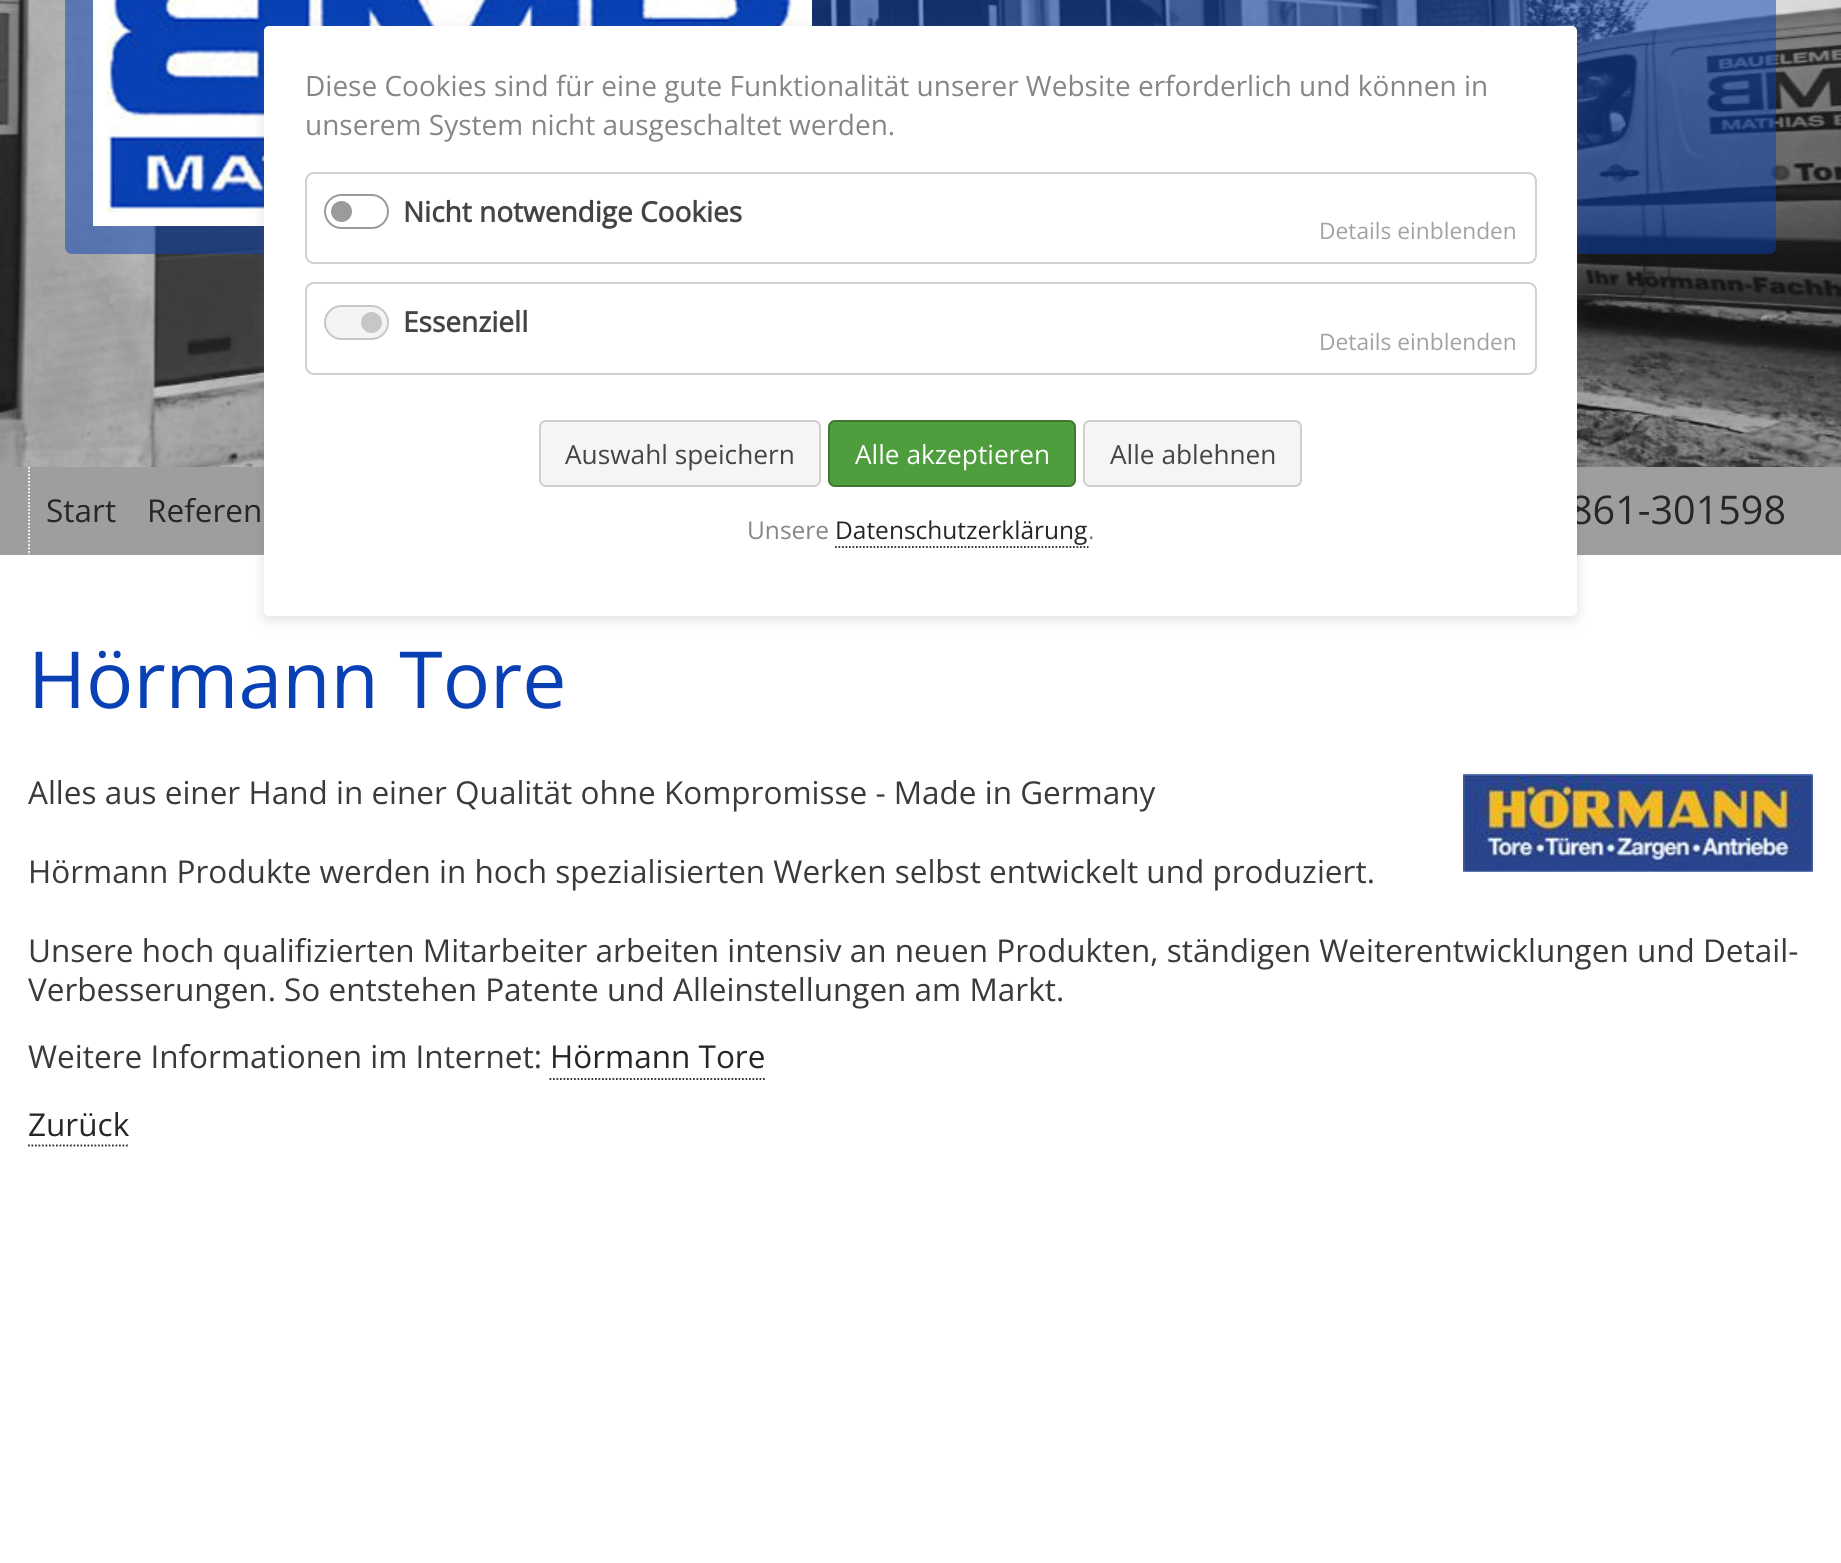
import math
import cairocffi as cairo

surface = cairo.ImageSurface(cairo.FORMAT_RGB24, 1841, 1563)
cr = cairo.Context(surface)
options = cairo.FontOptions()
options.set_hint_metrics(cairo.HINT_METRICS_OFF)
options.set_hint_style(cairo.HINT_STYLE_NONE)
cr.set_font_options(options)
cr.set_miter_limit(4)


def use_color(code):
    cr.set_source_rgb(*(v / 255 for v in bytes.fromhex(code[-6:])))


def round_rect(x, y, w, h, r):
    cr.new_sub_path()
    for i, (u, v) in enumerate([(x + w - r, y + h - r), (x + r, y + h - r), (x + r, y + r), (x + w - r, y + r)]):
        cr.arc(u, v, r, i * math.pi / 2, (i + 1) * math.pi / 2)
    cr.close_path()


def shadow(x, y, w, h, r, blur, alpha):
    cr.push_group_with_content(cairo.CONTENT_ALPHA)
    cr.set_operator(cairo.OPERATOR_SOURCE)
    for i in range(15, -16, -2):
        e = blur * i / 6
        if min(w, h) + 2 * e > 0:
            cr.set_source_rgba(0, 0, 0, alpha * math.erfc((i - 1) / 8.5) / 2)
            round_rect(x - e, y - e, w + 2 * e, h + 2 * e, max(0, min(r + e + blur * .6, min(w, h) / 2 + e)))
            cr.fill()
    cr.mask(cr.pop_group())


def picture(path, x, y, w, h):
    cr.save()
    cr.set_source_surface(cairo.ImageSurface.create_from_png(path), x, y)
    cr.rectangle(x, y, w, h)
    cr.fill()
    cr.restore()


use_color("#ffffff")
cr.paint()
picture("img1.png", 0, 0, 1841, 467)
cr.set_source_rgba(0.035, 0.251, 0.706, 0.5)
round_rect(65, -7, 1711, 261, 7)
cr.fill()
cr.rectangle(100, -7, 705, 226)
use_color("#ffffff")
cr.set_line_width(14)
cr.stroke()
picture("img2.png", 106, 0, 692, 212)
use_color("#9e9e9e")
cr.rectangle(0, 467, 1841, 88)
cr.fill()
use_color("#636363")
shadow(264, 30, 1313, 590, 5, 7, 0.2)
cr.select_font_face("Open Sans")
cr.set_font_size(39.5)
use_color("#262626")
cr.move_to(1570, 524)
cr.show_text("861-301598")
use_color("#ffffff")
round_rect(264, 26, 1313, 590, 5)
cr.fill()
cr.set_font_size(28)
use_color("#868686")
cr.move_to(305, 96)
cr.show_text("Diese Cookies sind für eine gute Funktionalität unserer Website erforderlich und können in")
cr.move_to(305, 135)
cr.show_text("unserem System nicht ausgeschaltet werden.")
round_rect(306, 173, 1230, 90, 8)
use_color("#d0d0d0")
cr.set_line_width(2)
cr.stroke()
round_rect(325, 195, 63, 33, 16.5)
use_color("#9c9b99")
cr.stroke()
cr.select_font_face("Open Sans", cairo.FONT_SLANT_NORMAL, cairo.FONT_WEIGHT_BOLD)
use_color("#444444")
cr.move_to(403, 222)
cr.show_text("Nicht notwendige Cookies")
use_color("#9c9b99")
cr.new_path()
cr.arc(341.5, 211.5, 10.5, 0, 2 * math.pi)
cr.fill()
cr.select_font_face("Open Sans")
cr.set_font_size(22.75)
use_color("#a2a2a2")
cr.move_to(1319, 239)
cr.show_text("Details einblenden")
round_rect(306, 283, 1230, 91, 8)
use_color("#d0d0d0")
cr.stroke()
use_color("#f4f4f4")
round_rect(325, 306, 63, 33, 16.5)
cr.fill_preserve()
use_color("#c8c7c5")
cr.stroke()
cr.select_font_face("Open Sans", cairo.FONT_SLANT_NORMAL, cairo.FONT_WEIGHT_BOLD)
cr.set_font_size(28)
use_color("#444444")
cr.move_to(403, 332)
cr.show_text("Essenziell")
use_color("#c8c7c5")
cr.new_path()
cr.arc(371.5, 322.5, 10.5, 0, 2 * math.pi)
cr.fill()
cr.select_font_face("Open Sans")
cr.set_font_size(22.75)
use_color("#a2a2a2")
cr.move_to(1319, 350)
cr.show_text("Details einblenden")
use_color("#f5f5f5")
round_rect(540, 421, 280, 65, 6)
cr.fill_preserve()
use_color("#cfcfcf")
cr.stroke()
cr.set_font_size(26.25)
use_color("#444444")
cr.move_to(565, 464)
cr.show_text("Auswahl speichern")
use_color("#4e9e3e")
round_rect(829, 421, 246, 65, 6)
cr.fill_preserve()
use_color("#3e7830")
cr.stroke()
use_color("#ffffff")
cr.move_to(855, 464)
cr.show_text("Alle akzeptieren")
use_color("#f5f5f5")
round_rect(1084, 421, 217, 65, 6)
cr.fill_preserve()
use_color("#cfcfcf")
cr.stroke()
use_color("#444444")
cr.move_to(1110, 464)
cr.show_text("Alle ablehnen")
cr.set_font_size(24.5)
use_color("#868686")
cr.move_to(747, 539)
cr.show_text("Unsere")
use_color("#262626")
cr.move_to(835, 539)
cr.show_text("Datenschutzerklärung")
cr.new_path()
cr.move_to(835, 547)
cr.line_to(1088.5, 547)
cr.set_line_width(1.8)
cr.set_dash([1.75, 1.75])
cr.stroke()
use_color("#868686")
cr.move_to(1088, 539)
cr.show_text(".")
cr.new_path()
cr.move_to(29, 467)
cr.line_to(29, 555)
use_color("#ffffff")
cr.stroke()
cr.set_font_size(31.5)
use_color("#262626")
cr.move_to(46, 522)
cr.show_text("Start")
cr.move_to(147, 522)
cr.show_text("Referen")
cr.set_font_size(78.75)
use_color("#0940b4")
cr.move_to(28, 708)
cr.show_text("Hörmann Tore")
picture("img3.png", 1463, 773, 350, 99)
cr.set_font_size(31.5)
use_color("#3a3a3a")
cr.move_to(28, 804)
cr.show_text("Alles aus einer Hand in einer Qualität ohne Kompromisse - Made in Germany")
cr.move_to(28, 883)
cr.show_text("Hörmann Produkte werden in hoch spezialisierten Werken selbst entwickelt und produziert.")
cr.move_to(28, 962)
cr.show_text("Unsere hoch qualifizierten Mitarbeiter arbeiten intensiv an neuen Produkten, ständigen Weiterentwicklungen und Detail-")
cr.move_to(28, 1001)
cr.show_text("Verbesserungen. So entstehen Patente und Alleinstellungen am Markt.")
cr.move_to(28, 1068)
cr.show_text("Weitere Informationen im Internet:")
use_color("#262626")
cr.move_to(550, 1068)
cr.show_text("Hörmann Tore")
cr.new_path()
cr.move_to(549.5, 1079)
cr.line_to(765, 1079)
cr.stroke()
cr.move_to(28, 1136)
cr.show_text("Zurück")
cr.new_path()
cr.move_to(28, 1145.5)
cr.line_to(129.5, 1145.5)
cr.stroke()
surface.write_to_png("result.png")
